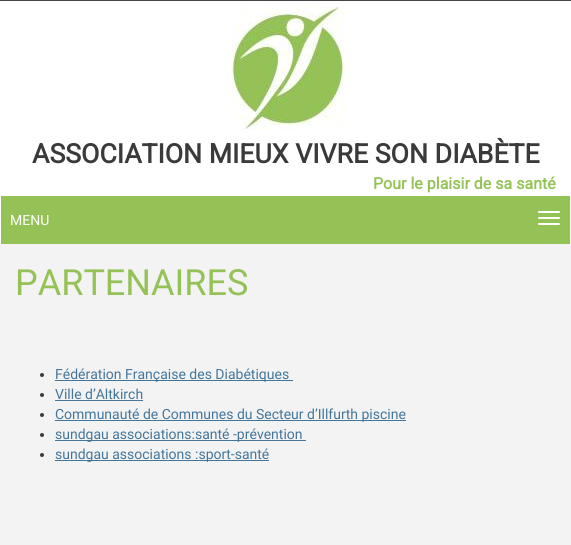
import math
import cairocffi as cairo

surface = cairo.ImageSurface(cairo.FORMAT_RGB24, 571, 545)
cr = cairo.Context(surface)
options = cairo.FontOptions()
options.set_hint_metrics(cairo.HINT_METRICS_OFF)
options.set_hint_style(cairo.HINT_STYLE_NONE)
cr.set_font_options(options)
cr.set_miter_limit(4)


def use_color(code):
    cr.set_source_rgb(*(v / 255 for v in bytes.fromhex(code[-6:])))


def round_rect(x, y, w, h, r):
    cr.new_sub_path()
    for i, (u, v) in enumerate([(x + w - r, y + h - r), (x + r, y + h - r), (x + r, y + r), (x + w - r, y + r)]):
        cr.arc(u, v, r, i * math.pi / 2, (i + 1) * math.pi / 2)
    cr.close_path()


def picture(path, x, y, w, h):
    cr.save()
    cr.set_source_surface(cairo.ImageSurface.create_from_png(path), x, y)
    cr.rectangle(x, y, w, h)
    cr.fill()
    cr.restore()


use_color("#f3f3f3")
cr.paint()
use_color("#444444")
cr.rectangle(0, 0, 571, 1)
cr.fill()
use_color("#ffffff")
cr.rectangle(0, 1, 571, 195)
cr.fill()
picture("img1.png", 231, 6, 114, 124)
cr.select_font_face("Roboto", cairo.FONT_SLANT_NORMAL, cairo.FONT_WEIGHT_BOLD)
cr.set_font_size(26.7)
use_color("#3a3a3a")
cr.move_to(32, 163)
cr.show_text("ASSOCIATION MIEUX VIVRE SON DIABÈTE")
cr.set_font_size(16)
use_color("#94c256")
cr.move_to(373, 189)
cr.show_text("Pour le plaisir de sa santé")
cr.rectangle(1, 196, 569, 48)
cr.fill()
use_color("#ffffff")
cr.rectangle(570, 196, 1, 48)
cr.fill()
cr.rectangle(0, 196, 1, 48)
cr.fill()
round_rect(538, 211, 22, 2, 1)
cr.fill()
cr.select_font_face("Roboto")
cr.set_font_size(14)
cr.move_to(10, 225)
cr.show_text("MENU")
round_rect(538, 217, 22, 2, 1)
cr.fill()
round_rect(538, 223, 22, 2, 1)
cr.fill()
cr.set_font_size(36)
use_color("#94c256")
cr.move_to(15, 295)
cr.show_text("PARTENAIRES")
use_color("#3a3a3a")
cr.new_path()
cr.arc(42, 375, 2, 0, 2 * math.pi)
cr.fill()
use_color("#44769b")
cr.rectangle(55, 380, 238, 1)
cr.fill()
cr.set_font_size(14)
cr.move_to(55, 379)
cr.show_text("Fédération Française des Diabétiques")
use_color("#3a3a3a")
cr.new_path()
cr.arc(42, 395, 2, 0, 2 * math.pi)
cr.fill()
use_color("#44769b")
cr.move_to(55, 399)
cr.show_text("Ville d’Altkirch")
cr.rectangle(55, 400, 88, 1)
cr.fill()
use_color("#3a3a3a")
cr.arc(42, 415, 2, 0, 2 * math.pi)
cr.fill()
use_color("#44769b")
cr.rectangle(55, 420, 351, 1)
cr.fill()
cr.move_to(55, 419)
cr.show_text("Communauté de Communes du Secteur d’Illfurth piscine")
use_color("#3a3a3a")
cr.new_path()
cr.arc(42, 435, 2, 0, 2 * math.pi)
cr.fill()
use_color("#44769b")
cr.rectangle(55, 440, 251, 1)
cr.fill()
cr.move_to(55, 439)
cr.show_text("sundgau associations:santé -prévention")
use_color("#3a3a3a")
cr.new_path()
cr.arc(42, 455, 2, 0, 2 * math.pi)
cr.fill()
use_color("#44769b")
cr.rectangle(55, 460, 214, 1)
cr.fill()
cr.move_to(55, 459)
cr.show_text("sundgau associations :sport-santé")
surface.write_to_png("result.png")
